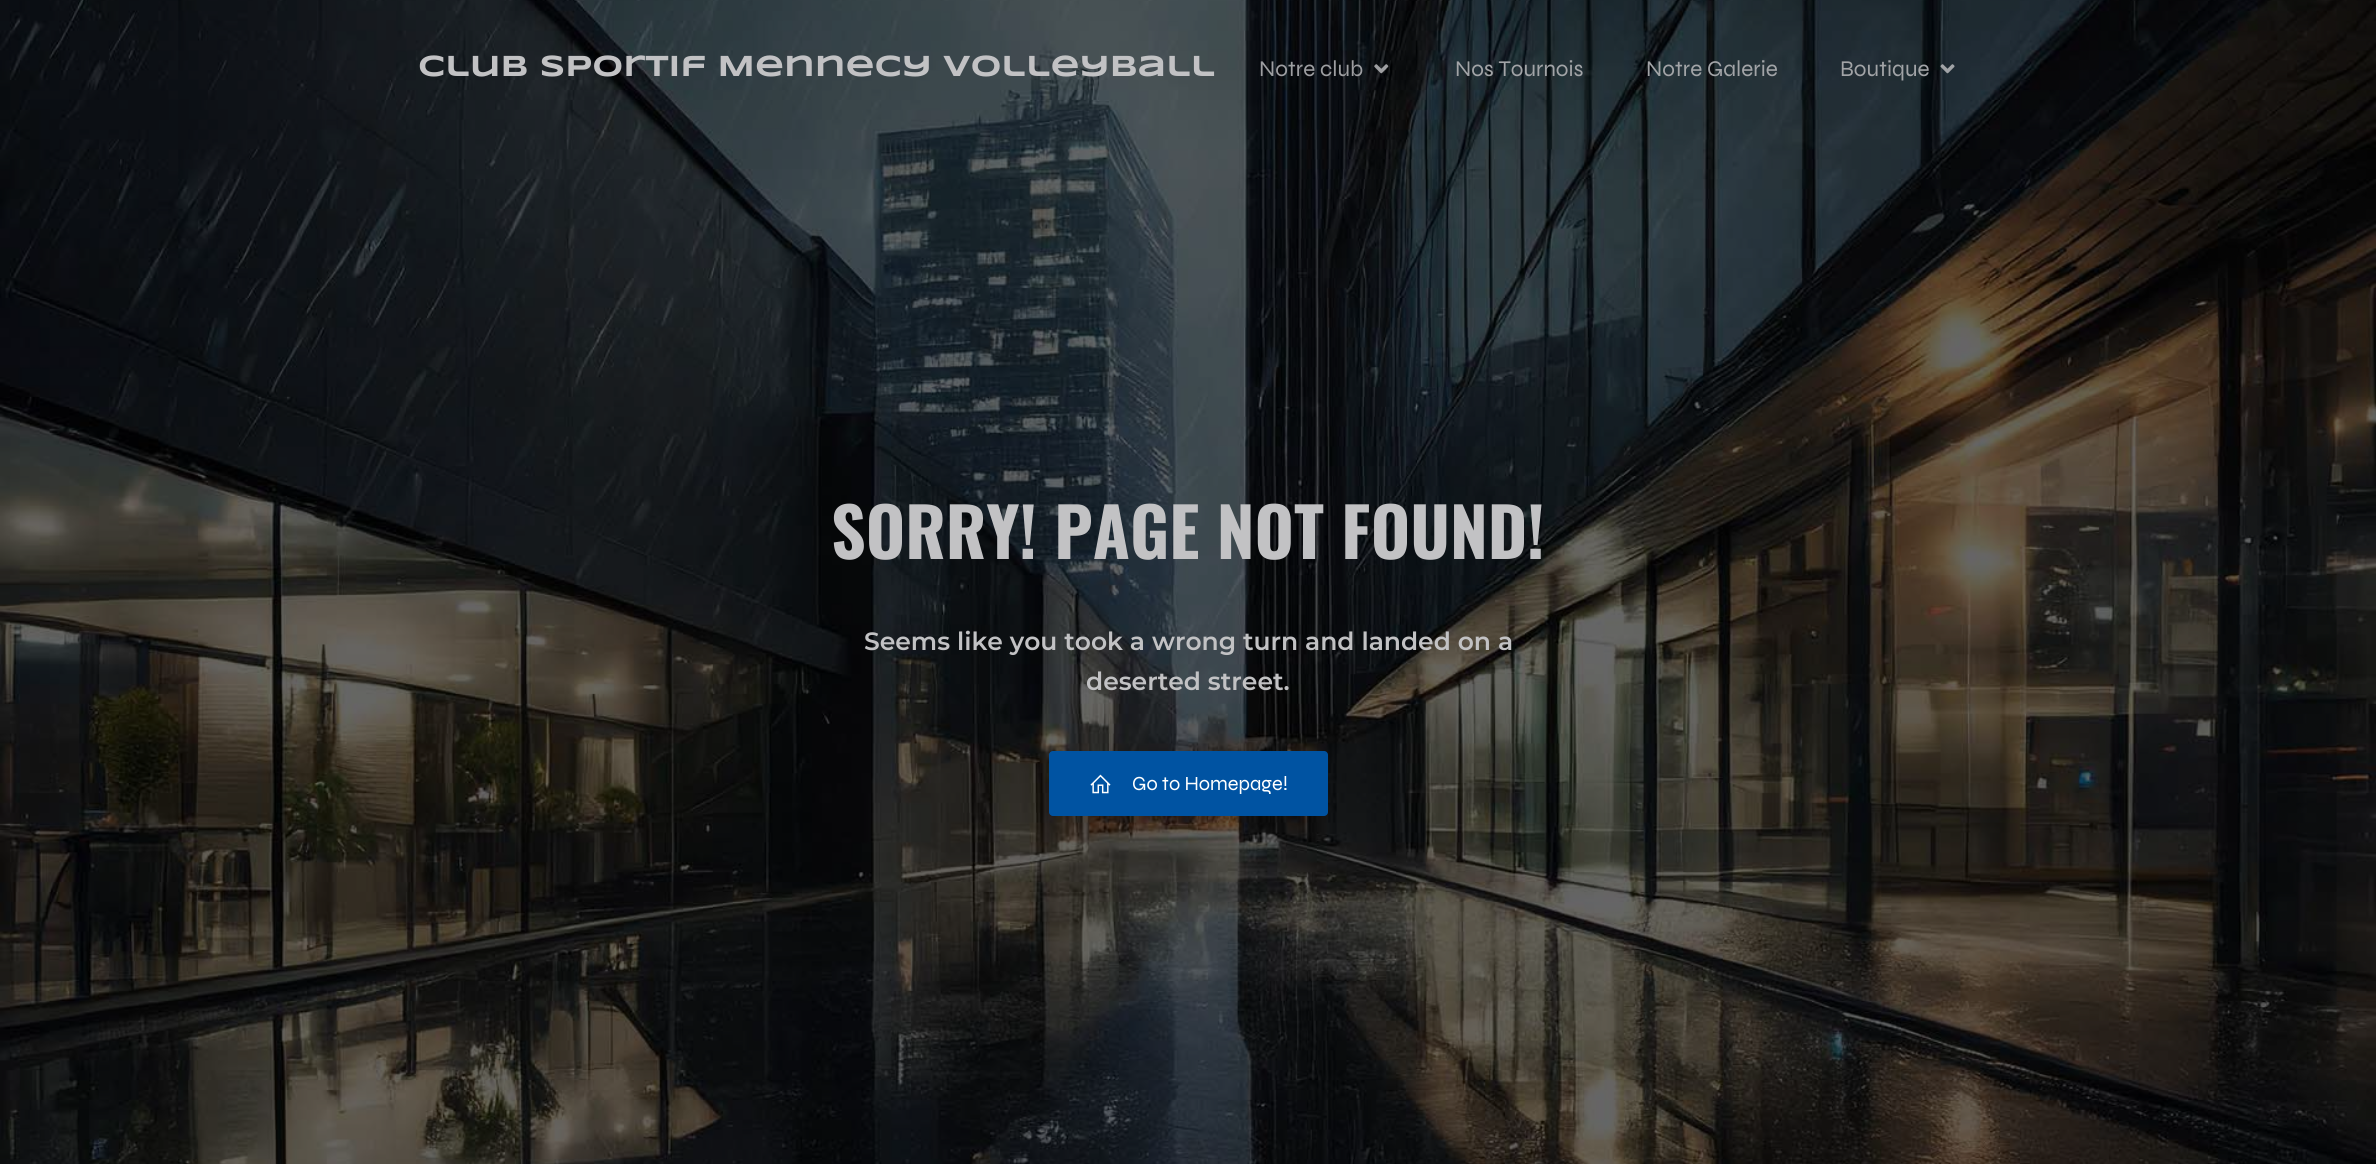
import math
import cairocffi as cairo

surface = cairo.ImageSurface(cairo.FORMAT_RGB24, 2376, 1164)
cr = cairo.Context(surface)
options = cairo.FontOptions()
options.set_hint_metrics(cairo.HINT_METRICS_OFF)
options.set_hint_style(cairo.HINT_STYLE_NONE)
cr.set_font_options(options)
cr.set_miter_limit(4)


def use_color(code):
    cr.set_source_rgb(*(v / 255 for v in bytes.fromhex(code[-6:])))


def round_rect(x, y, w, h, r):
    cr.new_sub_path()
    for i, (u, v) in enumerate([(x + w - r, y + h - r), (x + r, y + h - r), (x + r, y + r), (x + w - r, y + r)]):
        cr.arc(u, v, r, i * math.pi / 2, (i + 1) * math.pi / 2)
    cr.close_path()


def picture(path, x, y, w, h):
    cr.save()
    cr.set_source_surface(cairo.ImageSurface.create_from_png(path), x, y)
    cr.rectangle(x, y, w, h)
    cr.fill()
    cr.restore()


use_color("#ffffff")
cr.paint()
picture("img3.png", 0, 0, 2376, 1164)
cr.select_font_face("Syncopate", cairo.FONT_SLANT_NORMAL, cairo.FONT_WEIGHT_BOLD)
cr.set_font_size(30)
use_color("#c2c2c4")
cr.move_to(418, 76)
cr.show_text("Club Sportif Mennecy VolleyBall")
cr.select_font_face("Syne")
cr.set_font_size(22.5)
use_color("#9d9ea1")
cr.move_to(1259, 76)
cr.show_text("Notre club")
picture("img1.png", 1374, 64, 15, 10)
use_color("#a2a4a7")
cr.move_to(1455, 76)
cr.show_text("Nos Tournois")
cr.move_to(1646, 76)
cr.show_text("Notre Galerie")
cr.move_to(1840, 76)
cr.show_text("Boutique")
picture("img2.png", 1940, 64, 15, 10)
cr.select_font_face("Oswald", cairo.FONT_SLANT_NORMAL, cairo.FONT_WEIGHT_BOLD)
cr.set_font_size(67.5)
use_color("#c2c2c4")
cr.move_to(831, 559)
cr.show_text("SORRY! PAGE NOT FOUND!")
cr.select_font_face("Montserrat SemiBold")
cr.set_font_size(25)
cr.move_to(864, 650)
cr.show_text("Seems like you took a wrong turn and landed on a")
cr.move_to(1086, 690)
cr.show_text("deserted street.")
use_color("#0053a2")
round_rect(1049, 751, 279, 65, 4)
cr.fill()
picture("img4.png", 1090, 774, 21, 20)
cr.select_font_face("Syne")
cr.set_font_size(20)
use_color("#ffffff")
cr.move_to(1132, 790)
cr.show_text("Go to Homepage!")
surface.write_to_png("result.png")
